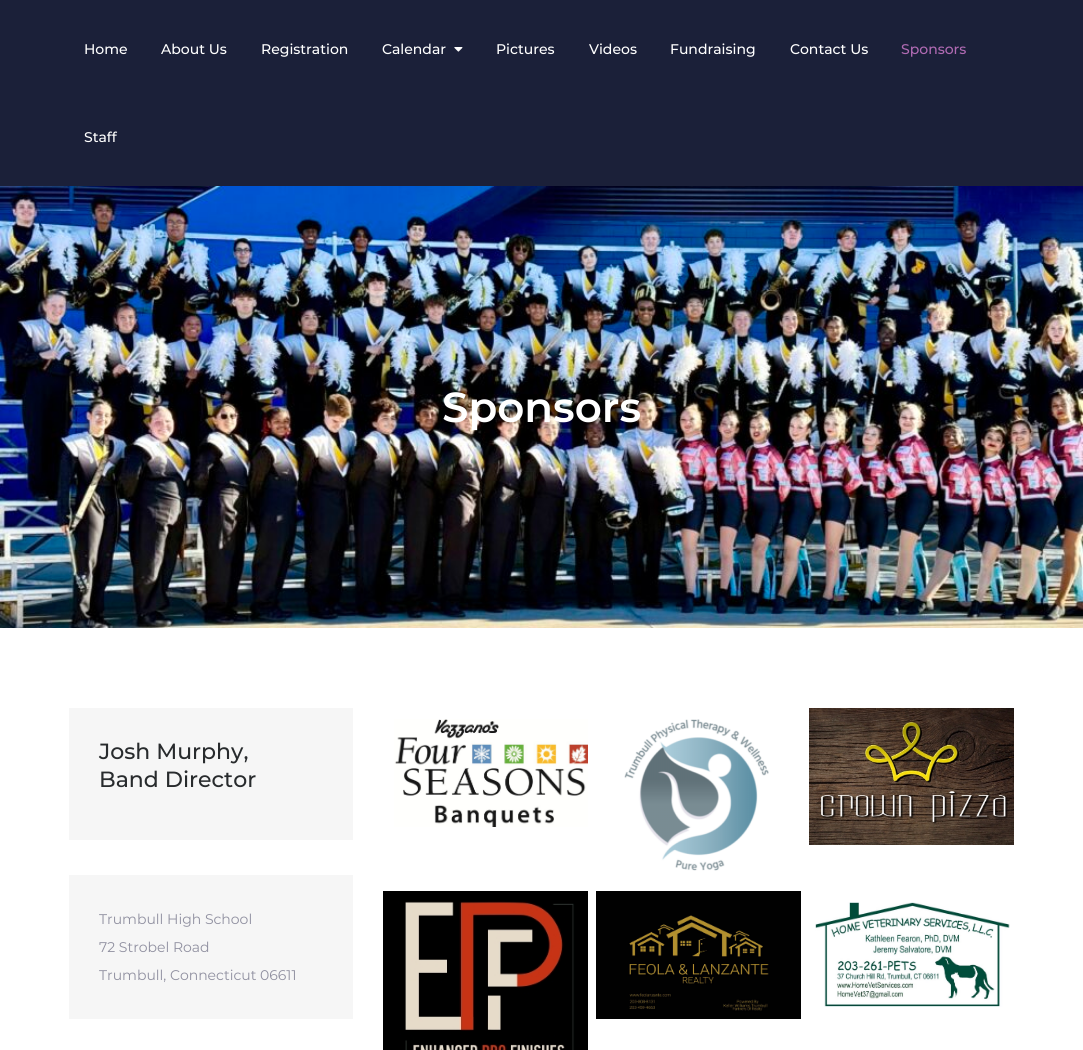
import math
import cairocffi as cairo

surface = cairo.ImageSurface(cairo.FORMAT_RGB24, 1083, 1050)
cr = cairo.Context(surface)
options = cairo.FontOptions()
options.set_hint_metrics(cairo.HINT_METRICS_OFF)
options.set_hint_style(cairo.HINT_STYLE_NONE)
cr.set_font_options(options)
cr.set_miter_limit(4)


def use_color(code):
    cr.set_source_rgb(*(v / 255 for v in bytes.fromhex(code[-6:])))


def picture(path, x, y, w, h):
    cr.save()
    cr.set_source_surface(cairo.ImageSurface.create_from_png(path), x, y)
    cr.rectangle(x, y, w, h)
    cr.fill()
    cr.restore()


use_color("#ffffff")
cr.paint()
use_color("#1b2039")
cr.rectangle(0, 0, 1083, 186)
cr.fill()
cr.select_font_face("Montserrat Medium")
cr.set_font_size(14)
use_color("#ffffff")
cr.move_to(84, 54)
cr.show_text("Home")
cr.move_to(161, 54)
cr.show_text("About Us")
cr.move_to(261, 54)
cr.show_text("Registration")
cr.move_to(382, 54)
cr.show_text("Calendar")
picture("img1.png", 454, 47, 9, 5)
cr.move_to(496, 54)
cr.show_text("Pictures")
cr.move_to(589, 54)
cr.show_text("Videos")
cr.move_to(670, 54)
cr.show_text("Fundraising")
cr.move_to(790, 54)
cr.show_text("Contact Us")
use_color("#b06ab3")
cr.move_to(901, 54)
cr.show_text("Sponsors")
use_color("#ffffff")
cr.move_to(84, 142)
cr.show_text("Staff")
picture("img2.png", 0, 186, 1083, 442)
cr.select_font_face("Montserrat SemiBold")
cr.set_font_size(42)
cr.move_to(442, 422)
cr.show_text("Sponsors")
use_color("#f6f6f6")
cr.rectangle(69, 708, 284, 132)
cr.fill()
cr.select_font_face("Montserrat Medium")
cr.set_font_size(22)
use_color("#282b2d")
cr.move_to(99, 759)
cr.show_text("Josh Murphy,")
cr.move_to(99, 787)
cr.show_text("Band Director")
use_color("#f6f6f6")
cr.rectangle(69, 875, 284, 144)
cr.fill()
cr.select_font_face("Montserrat")
cr.set_font_size(14)
use_color("#9090a0")
cr.move_to(99, 924)
cr.show_text("Trumbull High School")
cr.move_to(99, 952)
cr.show_text("72 Strobel Road")
cr.move_to(99, 980)
cr.show_text("Trumbull, Connecticut 06611")
picture("img3.png", 394, 719, 194, 108)
picture("img4.png", 624, 719, 145, 152)
picture("img5.png", 809, 708, 205, 137)
picture("img6.png", 383, 891, 205, 159)
picture("img7.png", 596, 891, 205, 128)
picture("img8.png", 815, 902, 195, 105)
surface.write_to_png("result.png")
